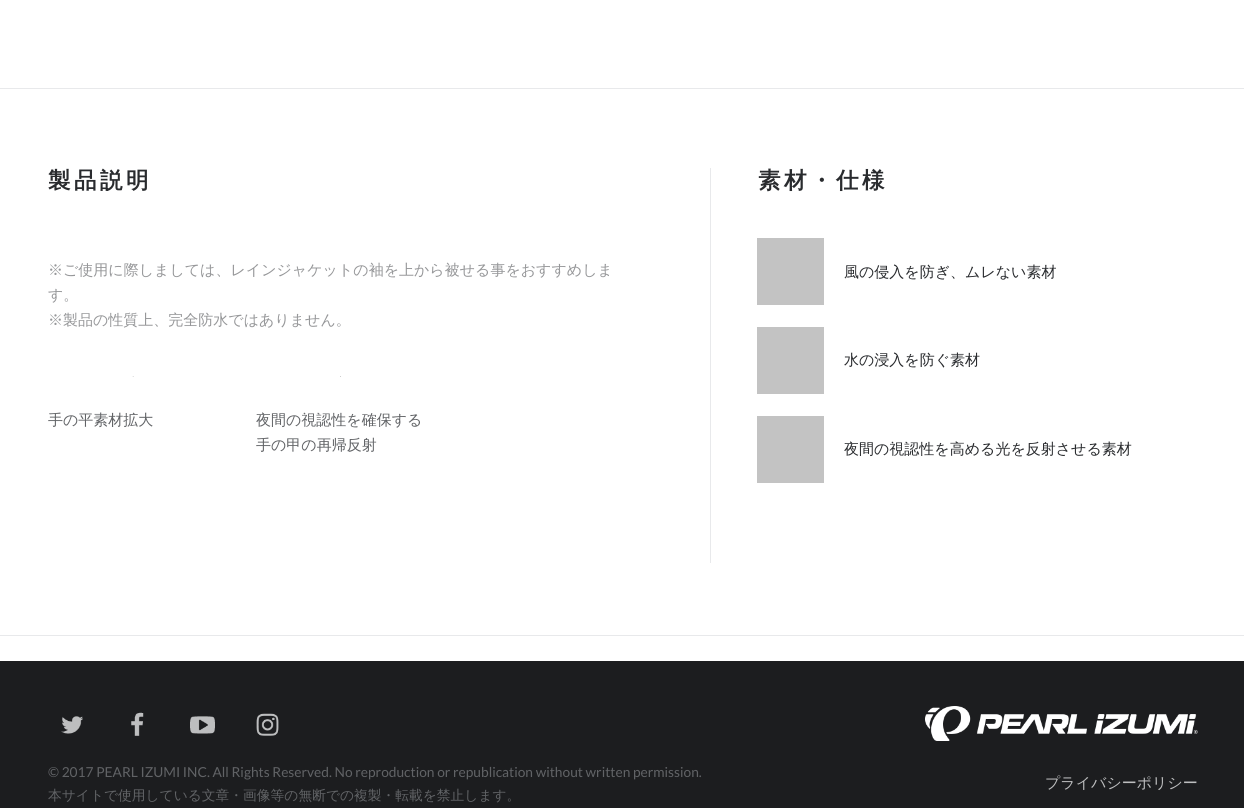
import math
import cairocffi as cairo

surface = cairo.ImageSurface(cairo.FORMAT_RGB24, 1244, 808)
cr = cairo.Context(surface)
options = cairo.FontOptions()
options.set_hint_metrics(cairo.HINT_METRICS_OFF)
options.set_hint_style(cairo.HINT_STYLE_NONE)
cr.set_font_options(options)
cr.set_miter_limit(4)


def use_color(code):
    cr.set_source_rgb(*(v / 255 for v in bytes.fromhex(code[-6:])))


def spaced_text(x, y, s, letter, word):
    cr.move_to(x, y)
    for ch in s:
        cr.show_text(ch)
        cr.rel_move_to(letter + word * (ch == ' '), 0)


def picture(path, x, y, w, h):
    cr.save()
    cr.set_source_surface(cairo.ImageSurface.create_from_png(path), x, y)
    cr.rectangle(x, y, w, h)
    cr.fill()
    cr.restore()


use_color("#ffffff")
cr.paint()
use_color("#e8e9eb")
cr.rectangle(0, 88, 1244, 1)
cr.fill()
cr.rectangle(0, 635, 1244, 1)
cr.fill()
cr.select_font_face("WenQuanYi Zen Hei", cairo.FONT_SLANT_NORMAL, cairo.FONT_WEIGHT_BOLD)
cr.set_font_size(22.5)
use_color("#292b2e")
spaced_text(48, 188, "製品説明", 3.5, 0)
cr.select_font_face("WenQuanYi Zen Hei Medium")
cr.set_font_size(15)
use_color("#969799")
cr.move_to(48, 275)
cr.show_text("※ご使用に際しましては、レインジャケットの袖を上から被せる事をおすすめしま")
cr.move_to(48, 300)
cr.show_text("す。")
cr.move_to(48, 325)
cr.show_text("※製品の性質上、完全防水ではありません。")
picture("img1.png", 132, 376, 2, 1)
use_color("#616366")
cr.move_to(48, 425)
cr.show_text("手の平素材拡大")
use_color("#cecece")
cr.rectangle(340, 376, 1, 1)
cr.fill()
use_color("#616366")
cr.move_to(256, 425)
cr.show_text("夜間の視認性を確保する")
cr.move_to(256, 450)
cr.show_text("手の甲の再帰反射")
use_color("#e8e9eb")
cr.rectangle(710, 168, 1, 395)
cr.fill()
cr.select_font_face("WenQuanYi Zen Hei", cairo.FONT_SLANT_NORMAL, cairo.FONT_WEIGHT_BOLD)
cr.set_font_size(22.5)
use_color("#292b2e")
spaced_text(758, 188, "素材・仕様", 3.5, 0)
use_color("#c3c3c3")
cr.rectangle(757, 238, 67, 67)
cr.fill()
cr.select_font_face("WenQuanYi Zen Hei Medium")
cr.set_font_size(15)
use_color("#292b2e")
cr.move_to(844, 277)
cr.show_text("風の侵入を防ぎ、ムレない素材")
use_color("#c3c3c3")
cr.rectangle(757, 327, 67, 67)
cr.fill()
use_color("#292b2e")
cr.move_to(844, 365)
cr.show_text("水の浸入を防ぐ素材")
use_color("#c3c3c3")
cr.rectangle(757, 416, 67, 67)
cr.fill()
use_color("#292b2e")
cr.move_to(844, 454)
cr.show_text("夜間の視認性を高める光を反射させる素材")
use_color("#1c1d1f")
cr.rectangle(0, 661, 1244, 147)
cr.fill()
picture("img2.png", 61, 716, 22, 18)
picture("img3.png", 131, 712, 13, 24)
picture("img4.png", 190, 716, 25, 18)
picture("img5.png", 256, 713, 23, 23)
picture("img6.png", 925, 706, 273, 35)
cr.select_font_face("Lato")
cr.set_font_size(13.75)
use_color("#616366")
cr.move_to(48, 777)
cr.show_text("© 2017 PEARL IZUMI INC. All Rights Reserved. No reproduction or republication without written permission.")
cr.select_font_face("WenQuanYi Zen Hei Medium")
cr.move_to(48, 800)
cr.show_text("本サイトで使用している文章・画像等の無断での複製・転載を禁止します。")
cr.set_font_size(15)
use_color("#bdbebf")
cr.move_to(1045, 788)
cr.show_text("プライバシーポリシー")
surface.write_to_png("result.png")
